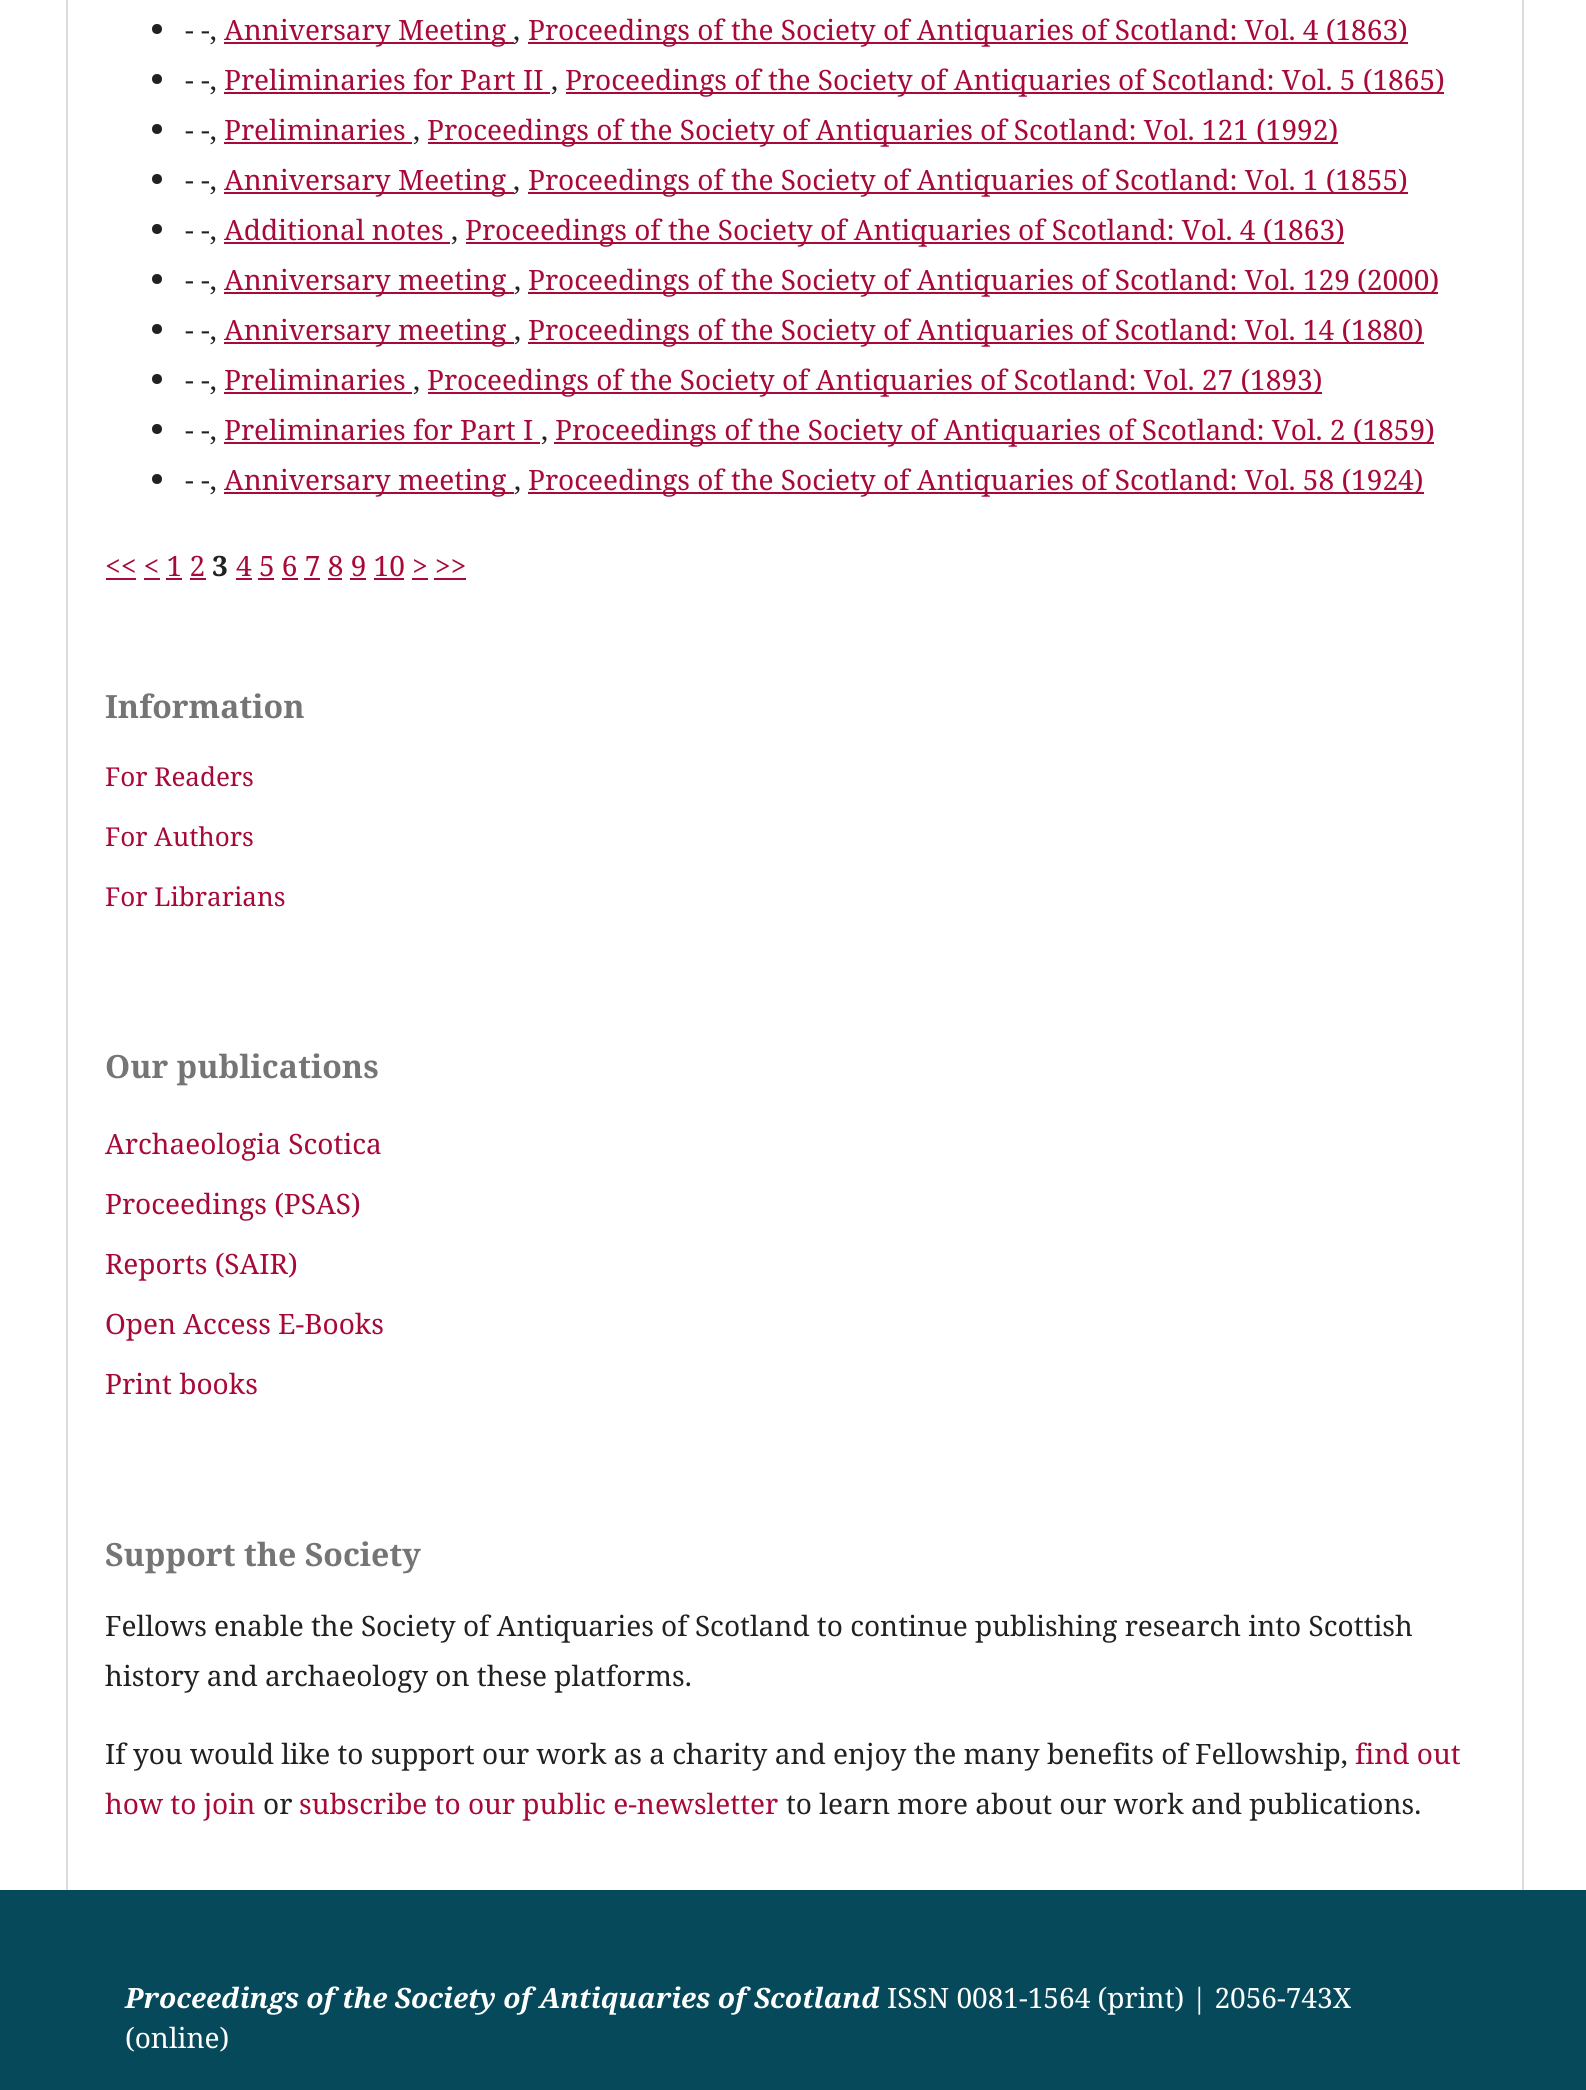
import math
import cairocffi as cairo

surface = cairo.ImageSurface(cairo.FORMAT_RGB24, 1586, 2090)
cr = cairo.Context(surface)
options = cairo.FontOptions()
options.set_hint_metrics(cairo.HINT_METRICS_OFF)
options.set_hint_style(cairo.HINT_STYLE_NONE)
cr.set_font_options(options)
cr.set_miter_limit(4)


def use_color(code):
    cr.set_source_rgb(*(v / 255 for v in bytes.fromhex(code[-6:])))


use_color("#ffffff")
cr.paint()
use_color("#dddddd")
cr.rectangle(66, 0, 2, 1890)
cr.fill()
use_color("#212121")
cr.arc(157, 29, 5, 0, 2 * math.pi)
cr.fill()
use_color("#a70938")
cr.rectangle(224, 42, 290, 2)
cr.fill()
cr.select_font_face("Noto Serif")
cr.set_font_size(28)
cr.move_to(224, 40)
cr.show_text("Anniversary Meeting")
cr.rectangle(528, 42, 880, 2)
cr.fill()
cr.move_to(528, 40)
cr.show_text("Proceedings of the Society of Antiquaries of Scotland: Vol. 4 (1863)")
use_color("#212121")
cr.move_to(185, 40)
cr.show_text("- -,")
cr.move_to(513, 40)
cr.show_text(",")
cr.new_path()
cr.arc(157, 79, 5, 0, 2 * math.pi)
cr.fill()
use_color("#a70938")
cr.move_to(224, 90)
cr.show_text("Preliminaries for Part II")
cr.rectangle(224, 92, 326, 2)
cr.fill()
cr.rectangle(566, 92, 878, 2)
cr.fill()
cr.move_to(565, 90)
cr.show_text("Proceedings of the Society of Antiquaries of Scotland: Vol. 5 (1865)")
use_color("#212121")
cr.move_to(185, 90)
cr.show_text("- -,")
cr.move_to(551, 90)
cr.show_text(",")
cr.new_path()
cr.arc(157, 129, 5, 0, 2 * math.pi)
cr.fill()
use_color("#a70938")
cr.move_to(224, 140)
cr.show_text("Preliminaries")
cr.rectangle(224, 142, 188, 2)
cr.fill()
cr.rectangle(428, 142, 910, 2)
cr.fill()
cr.move_to(427, 140)
cr.show_text("Proceedings of the Society of Antiquaries of Scotland: Vol. 121 (1992)")
use_color("#212121")
cr.move_to(185, 140)
cr.show_text("- -,")
cr.move_to(413, 140)
cr.show_text(",")
cr.new_path()
cr.arc(157, 179, 5, 0, 2 * math.pi)
cr.fill()
use_color("#a70938")
cr.rectangle(224, 192, 290, 2)
cr.fill()
cr.move_to(224, 190)
cr.show_text("Anniversary Meeting")
cr.rectangle(528, 192, 880, 2)
cr.fill()
cr.move_to(528, 190)
cr.show_text("Proceedings of the Society of Antiquaries of Scotland: Vol. 1 (1855)")
use_color("#212121")
cr.move_to(185, 190)
cr.show_text("- -,")
cr.move_to(513, 190)
cr.show_text(",")
cr.new_path()
cr.arc(157, 229, 5, 0, 2 * math.pi)
cr.fill()
use_color("#a70938")
cr.move_to(224, 240)
cr.show_text("Additional notes")
cr.rectangle(224, 242, 226, 2)
cr.fill()
cr.rectangle(466, 242, 878, 2)
cr.fill()
cr.move_to(465, 240)
cr.show_text("Proceedings of the Society of Antiquaries of Scotland: Vol. 4 (1863)")
use_color("#212121")
cr.move_to(185, 240)
cr.show_text("- -,")
cr.move_to(451, 240)
cr.show_text(",")
cr.new_path()
cr.arc(157, 279, 5, 0, 2 * math.pi)
cr.fill()
use_color("#a70938")
cr.rectangle(224, 292, 290, 2)
cr.fill()
cr.move_to(224, 290)
cr.show_text("Anniversary meeting")
cr.rectangle(528, 292, 910, 2)
cr.fill()
cr.move_to(528, 290)
cr.show_text("Proceedings of the Society of Antiquaries of Scotland: Vol. 129 (2000)")
use_color("#212121")
cr.move_to(185, 290)
cr.show_text("- -,")
cr.move_to(514, 290)
cr.show_text(",")
cr.new_path()
cr.arc(157, 329, 5, 0, 2 * math.pi)
cr.fill()
use_color("#a70938")
cr.rectangle(224, 342, 290, 2)
cr.fill()
cr.move_to(224, 340)
cr.show_text("Anniversary meeting")
cr.rectangle(528, 342, 896, 2)
cr.fill()
cr.move_to(528, 340)
cr.show_text("Proceedings of the Society of Antiquaries of Scotland: Vol. 14 (1880)")
use_color("#212121")
cr.move_to(185, 340)
cr.show_text("- -,")
cr.move_to(514, 340)
cr.show_text(",")
cr.new_path()
cr.arc(157, 379, 5, 0, 2 * math.pi)
cr.fill()
use_color("#a70938")
cr.move_to(224, 390)
cr.show_text("Preliminaries")
cr.rectangle(224, 392, 188, 2)
cr.fill()
cr.rectangle(428, 392, 894, 2)
cr.fill()
cr.move_to(427, 390)
cr.show_text("Proceedings of the Society of Antiquaries of Scotland: Vol. 27 (1893)")
use_color("#212121")
cr.move_to(185, 390)
cr.show_text("- -,")
cr.move_to(413, 390)
cr.show_text(",")
cr.new_path()
cr.arc(157, 429, 5, 0, 2 * math.pi)
cr.fill()
use_color("#a70938")
cr.move_to(224, 440)
cr.show_text("Preliminaries for Part I")
cr.rectangle(224, 442, 316, 2)
cr.fill()
cr.rectangle(554, 442, 880, 2)
cr.fill()
cr.move_to(555, 440)
cr.show_text("Proceedings of the Society of Antiquaries of Scotland: Vol. 2 (1859)")
use_color("#212121")
cr.move_to(185, 440)
cr.show_text("- -,")
cr.move_to(541, 440)
cr.show_text(",")
cr.new_path()
cr.arc(157, 479, 5, 0, 2 * math.pi)
cr.fill()
use_color("#a70938")
cr.rectangle(224, 492, 290, 2)
cr.fill()
cr.move_to(224, 490)
cr.show_text("Anniversary meeting")
cr.rectangle(528, 492, 896, 2)
cr.fill()
cr.move_to(528, 490)
cr.show_text("Proceedings of the Society of Antiquaries of Scotland: Vol. 58 (1924)")
use_color("#212121")
cr.move_to(185, 490)
cr.show_text("- -,")
cr.move_to(514, 490)
cr.show_text(",")
use_color("#a70938")
cr.move_to(105, 576)
cr.show_text("<< < 1 2")
cr.rectangle(106, 578, 30, 2)
cr.fill()
cr.select_font_face("Noto Serif", cairo.FONT_SLANT_NORMAL, cairo.FONT_WEIGHT_BOLD)
use_color("#212121")
cr.move_to(212, 576)
cr.show_text("3")
cr.select_font_face("Noto Serif")
use_color("#a70938")
cr.move_to(236, 576)
cr.show_text("4 5 6 7 8 9 10 > >>")
cr.rectangle(236, 578, 16, 2)
cr.fill()
cr.rectangle(144, 578, 16, 2)
cr.fill()
cr.rectangle(166, 578, 16, 2)
cr.fill()
cr.rectangle(190, 578, 16, 2)
cr.fill()
cr.rectangle(258, 578, 16, 2)
cr.fill()
cr.rectangle(282, 578, 16, 2)
cr.fill()
cr.rectangle(304, 578, 16, 2)
cr.fill()
cr.rectangle(328, 578, 14, 2)
cr.fill()
cr.rectangle(350, 578, 16, 2)
cr.fill()
cr.rectangle(374, 578, 30, 2)
cr.fill()
cr.rectangle(412, 578, 16, 2)
cr.fill()
cr.rectangle(434, 578, 32, 2)
cr.fill()
use_color("#dddddd")
cr.rectangle(1522, 0, 2, 1890)
cr.fill()
cr.select_font_face("Noto Serif", cairo.FONT_SLANT_NORMAL, cairo.FONT_WEIGHT_BOLD)
cr.set_font_size(32)
use_color("#757575")
cr.move_to(105, 718)
cr.show_text("Information")
cr.select_font_face("Noto Serif")
cr.set_font_size(26)
use_color("#a70938")
cr.move_to(105, 786)
cr.show_text("For Readers")
cr.move_to(105, 846)
cr.show_text("For Authors")
cr.move_to(105, 906)
cr.show_text("For Librarians")
cr.select_font_face("Noto Serif", cairo.FONT_SLANT_NORMAL, cairo.FONT_WEIGHT_BOLD)
cr.set_font_size(32)
use_color("#757575")
cr.move_to(105, 1078)
cr.show_text("Our publications")
cr.select_font_face("Noto Serif")
cr.set_font_size(28)
use_color("#a70938")
cr.move_to(105, 1154)
cr.show_text("Archaeologia Scotica")
cr.move_to(105, 1214)
cr.show_text("Proceedings (PSAS)")
cr.move_to(105, 1274)
cr.show_text("Reports (SAIR)")
cr.move_to(105, 1334)
cr.show_text("Open Access E-Books")
cr.move_to(105, 1394)
cr.show_text("Print books")
cr.select_font_face("Noto Serif", cairo.FONT_SLANT_NORMAL, cairo.FONT_WEIGHT_BOLD)
cr.set_font_size(32)
use_color("#757575")
cr.move_to(105, 1566)
cr.show_text("Support the Society")
cr.select_font_face("Noto Serif")
cr.set_font_size(28)
use_color("#212121")
cr.move_to(105, 1636)
cr.show_text("Fellows enable the Society of Antiquaries of Scotland to continue publishing research into Scottish")
cr.move_to(105, 1686)
cr.show_text("history and archaeology on these platforms.")
cr.move_to(105, 1764)
cr.show_text("If you would like to support our work as a charity and enjoy the many benefits of Fellowship,")
use_color("#a70938")
cr.move_to(1355, 1764)
cr.show_text("find out")
cr.move_to(105, 1814)
cr.show_text("how to join")
use_color("#212121")
cr.move_to(263, 1814)
cr.show_text("or")
use_color("#a70938")
cr.move_to(299, 1814)
cr.show_text("subscribe to our public e-newsletter")
use_color("#212121")
cr.move_to(786, 1814)
cr.show_text("to learn more about our work and publications.")
use_color("#06495a")
cr.rectangle(0, 1890, 1586, 200)
cr.fill()
cr.select_font_face("Noto Serif", cairo.FONT_SLANT_ITALIC, cairo.FONT_WEIGHT_BOLD)
use_color("#ffffff")
cr.move_to(125, 2008)
cr.show_text("Proceedings of the Society of Antiquaries of Scotland")
cr.select_font_face("Noto Serif")
cr.move_to(887, 2008)
cr.show_text("ISSN 0081-1564 (print) | 2056-743X")
cr.move_to(125, 2048)
cr.show_text("(online)")
surface.write_to_png("result.png")
